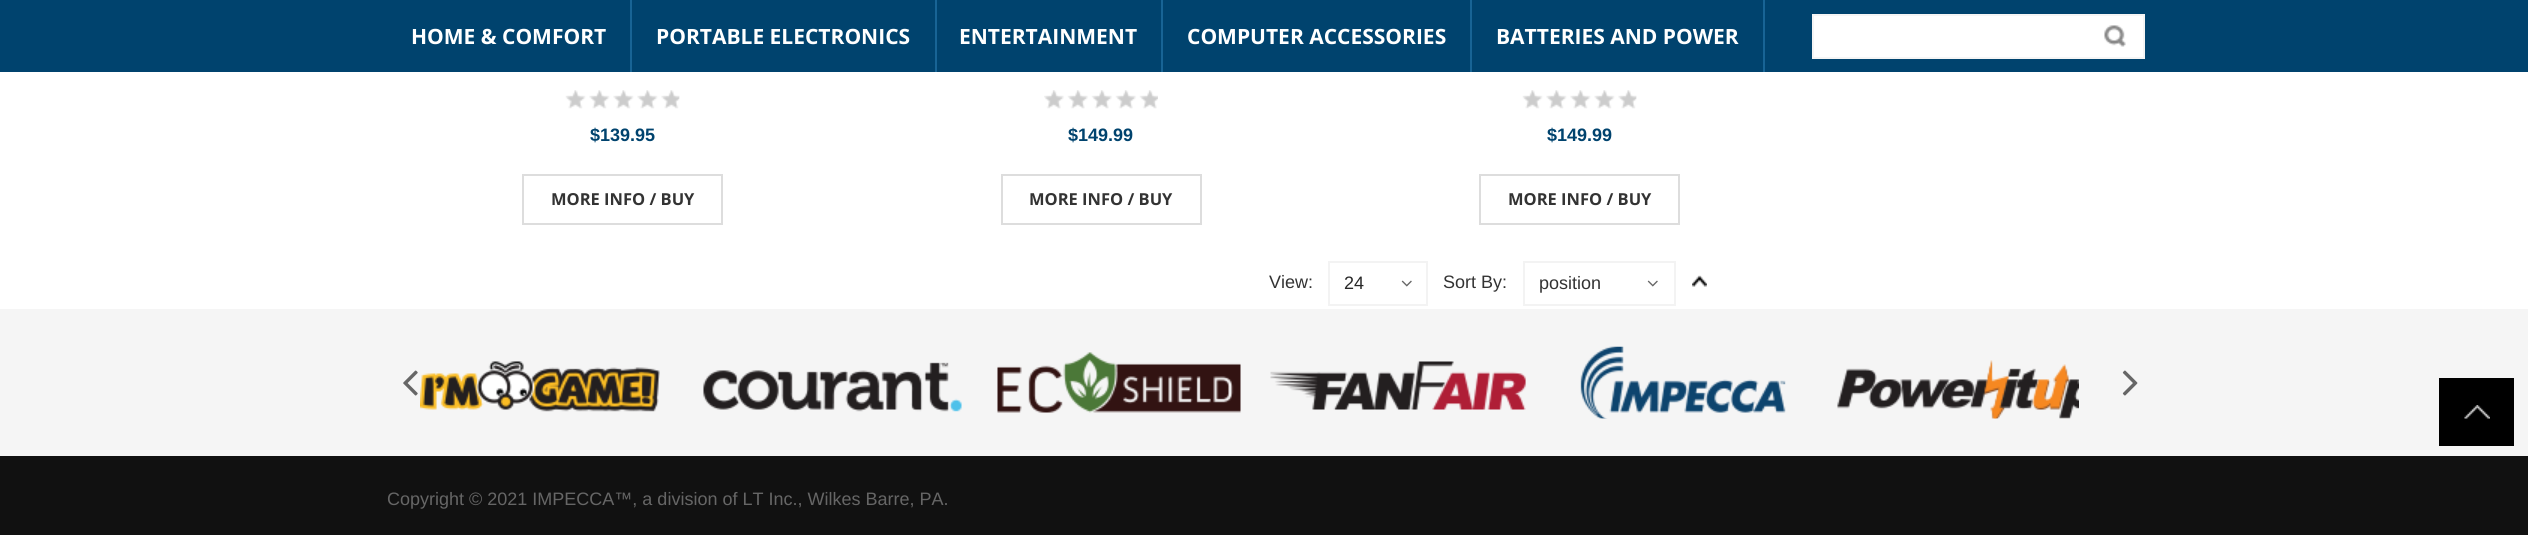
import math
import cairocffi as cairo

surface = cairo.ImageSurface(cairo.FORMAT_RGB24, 2528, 535)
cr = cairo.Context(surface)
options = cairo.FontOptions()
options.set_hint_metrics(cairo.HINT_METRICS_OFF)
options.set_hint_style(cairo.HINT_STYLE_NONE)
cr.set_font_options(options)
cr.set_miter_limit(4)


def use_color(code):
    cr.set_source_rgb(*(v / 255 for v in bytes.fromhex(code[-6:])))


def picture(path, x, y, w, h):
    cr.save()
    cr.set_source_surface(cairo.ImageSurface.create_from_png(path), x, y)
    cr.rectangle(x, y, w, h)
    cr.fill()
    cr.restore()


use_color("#ffffff")
cr.paint()
use_color("#00436e")
cr.rectangle(0, 0, 2528, 72)
cr.fill()
use_color("#186495")
cr.rectangle(630, 0, 2, 72)
cr.fill()
cr.select_font_face("Open Sans", cairo.FONT_SLANT_NORMAL, cairo.FONT_WEIGHT_BOLD)
cr.set_font_size(21)
use_color("#ffffff")
cr.move_to(411, 44)
cr.show_text("HOME & COMFORT")
use_color("#186495")
cr.rectangle(935, 0, 2, 72)
cr.fill()
use_color("#ffffff")
cr.move_to(656, 44)
cr.show_text("PORTABLE ELECTRONICS")
use_color("#186495")
cr.rectangle(1161, 0, 2, 72)
cr.fill()
use_color("#ffffff")
cr.move_to(959, 44)
cr.show_text("ENTERTAINMENT")
use_color("#186495")
cr.rectangle(1470, 0, 2, 72)
cr.fill()
use_color("#ffffff")
cr.move_to(1187, 44)
cr.show_text("COMPUTER ACCESSORIES")
use_color("#186495")
cr.rectangle(1763, 0, 2, 72)
cr.fill()
use_color("#ffffff")
cr.move_to(1496, 44)
cr.show_text("BATTERIES AND POWER")
cr.rectangle(1813, 15, 331, 43)
cr.fill_preserve()
use_color("#f5f5f5")
cr.stroke()
picture("img1.png", 2104, 25, 22, 22)
picture("img2.png", 565, 90, 115, 19)
cr.select_font_face("Liberation Sans", cairo.FONT_SLANT_NORMAL, cairo.FONT_WEIGHT_BOLD)
cr.set_font_size(18)
use_color("#00436e")
cr.move_to(590, 141)
cr.show_text("$139.95")
cr.rectangle(523, 175, 199, 49)
use_color("#dddddd")
cr.stroke()
cr.select_font_face("Open Sans", cairo.FONT_SLANT_NORMAL, cairo.FONT_WEIGHT_BOLD)
cr.set_font_size(16.5)
use_color("#333333")
cr.move_to(551, 205)
cr.show_text("MORE INFO / BUY")
picture("img3.png", 1044, 90, 114, 19)
cr.select_font_face("Liberation Sans", cairo.FONT_SLANT_NORMAL, cairo.FONT_WEIGHT_BOLD)
cr.set_font_size(18)
use_color("#00436e")
cr.move_to(1068, 141)
cr.show_text("$149.99")
cr.rectangle(1002, 175, 199, 49)
use_color("#dddddd")
cr.stroke()
cr.select_font_face("Open Sans", cairo.FONT_SLANT_NORMAL, cairo.FONT_WEIGHT_BOLD)
cr.set_font_size(16.5)
use_color("#333333")
cr.move_to(1029, 205)
cr.show_text("MORE INFO / BUY")
picture("img4.png", 1522, 90, 115, 19)
cr.select_font_face("Liberation Sans", cairo.FONT_SLANT_NORMAL, cairo.FONT_WEIGHT_BOLD)
cr.set_font_size(18)
use_color("#00436e")
cr.move_to(1547, 141)
cr.show_text("$149.99")
cr.rectangle(1480, 175, 199, 49)
use_color("#dddddd")
cr.stroke()
cr.select_font_face("Open Sans", cairo.FONT_SLANT_NORMAL, cairo.FONT_WEIGHT_BOLD)
cr.set_font_size(16.5)
use_color("#333333")
cr.move_to(1508, 205)
cr.show_text("MORE INFO / BUY")
cr.select_font_face("Liberation Sans")
cr.set_font_size(18)
cr.move_to(1269, 288)
cr.show_text("View:")
cr.rectangle(1329, 262, 98, 43)
use_color("#f3f3f3")
cr.stroke()
use_color("#282828")
cr.move_to(1344, 289)
cr.show_text("24")
picture("img5.png", 1401, 280, 11, 7)
use_color("#333333")
cr.move_to(1443, 288)
cr.show_text("Sort By:")
cr.rectangle(1524, 262, 151, 43)
use_color("#f3f3f3")
cr.stroke()
use_color("#333333")
cr.move_to(1539, 289)
cr.show_text("position")
picture("img5.png", 1647, 280, 11, 7)
picture("img6.png", 1692, 275, 15, 12)
use_color("#f5f5f5")
cr.rectangle(0, 309, 2528, 147)
cr.fill()
picture("img7.png", 403, 370, 15, 26)
picture("img8.png", 420, 361, 240, 51)
picture("img9.png", 703, 362, 259, 50)
picture("img10.png", 997, 352, 244, 61)
picture("img11.png", 1270, 361, 256, 49)
picture("img12.png", 1580, 346, 206, 73)
picture("img13.png", 1837, 360, 242, 59)
picture("img14.png", 2122, 370, 16, 26)
use_color("#000000")
cr.rectangle(2439, 378, 75, 68)
cr.fill()
picture("img15.png", 2464, 405, 26, 14)
use_color("#111111")
cr.rectangle(0, 456, 2528, 79)
cr.fill()
use_color("#666666")
cr.move_to(387, 505)
cr.show_text("Copyright © 2021 IMPECCA™, a division of LT Inc., Wilkes Barre, PA.")
surface.write_to_png("result.png")
